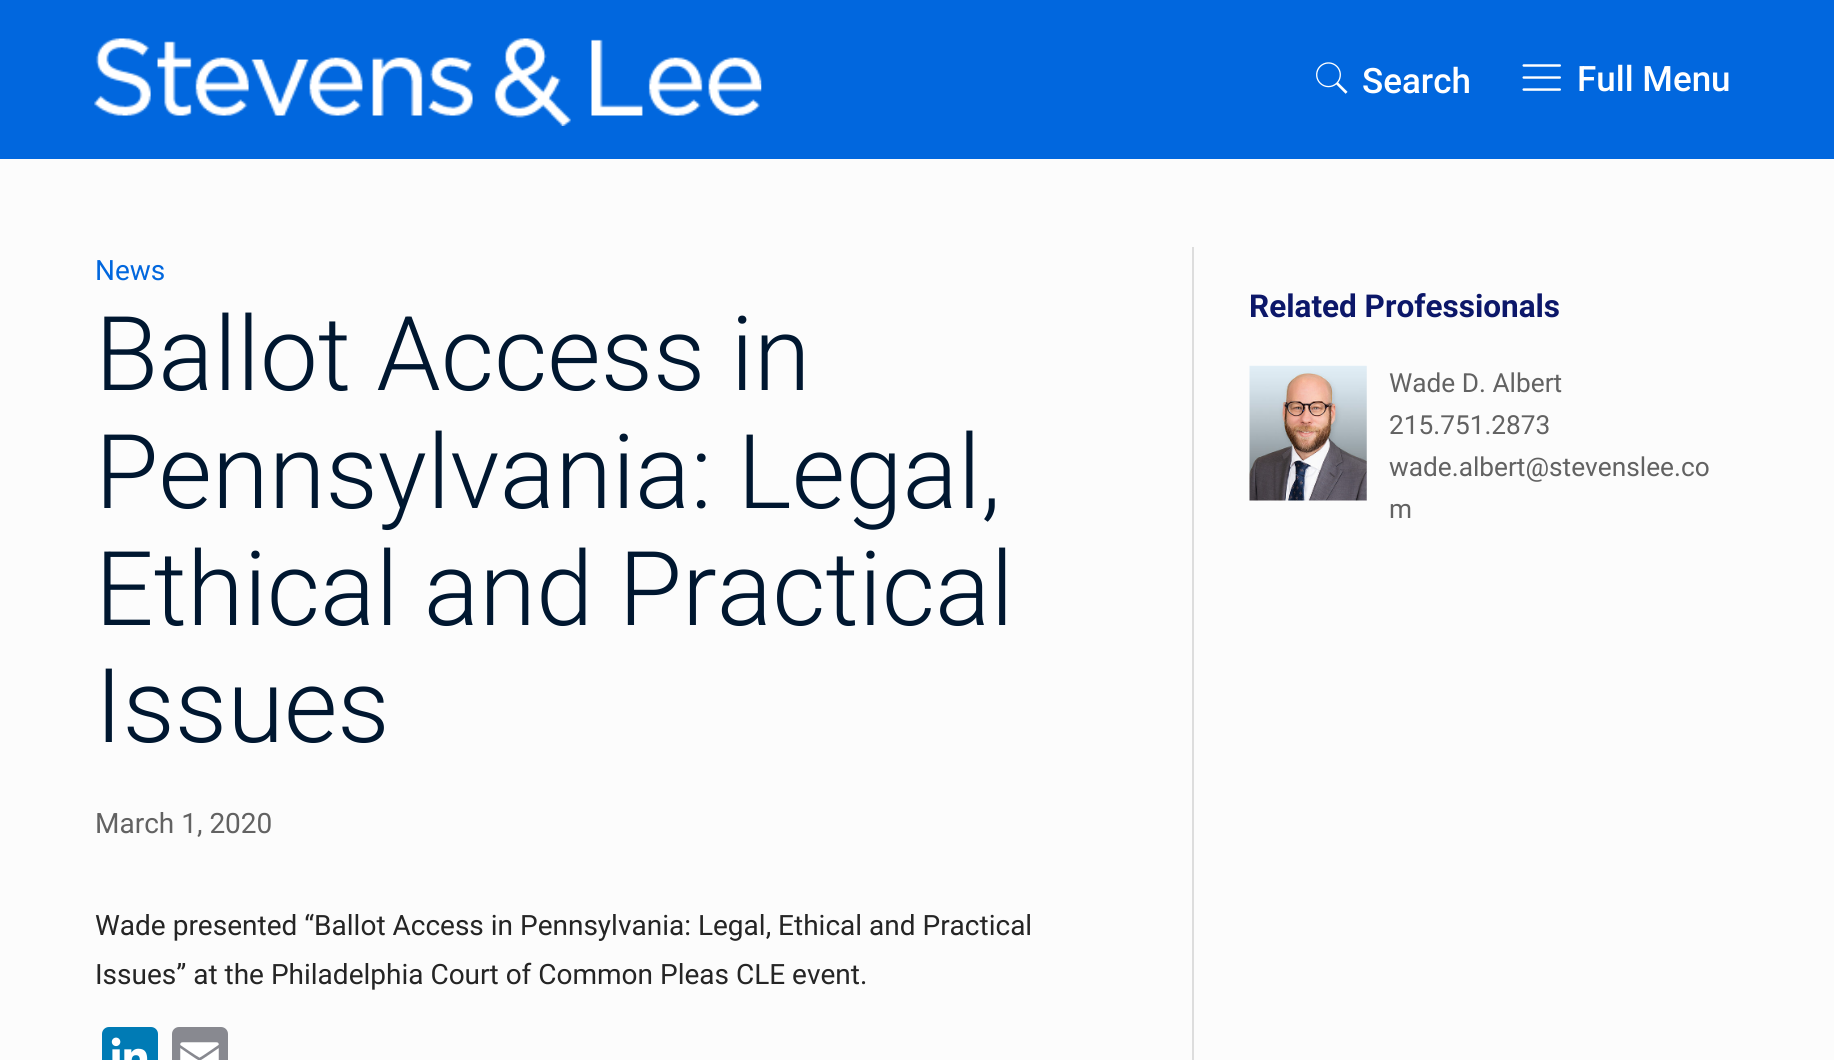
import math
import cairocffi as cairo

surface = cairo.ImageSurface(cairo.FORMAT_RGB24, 1834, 1060)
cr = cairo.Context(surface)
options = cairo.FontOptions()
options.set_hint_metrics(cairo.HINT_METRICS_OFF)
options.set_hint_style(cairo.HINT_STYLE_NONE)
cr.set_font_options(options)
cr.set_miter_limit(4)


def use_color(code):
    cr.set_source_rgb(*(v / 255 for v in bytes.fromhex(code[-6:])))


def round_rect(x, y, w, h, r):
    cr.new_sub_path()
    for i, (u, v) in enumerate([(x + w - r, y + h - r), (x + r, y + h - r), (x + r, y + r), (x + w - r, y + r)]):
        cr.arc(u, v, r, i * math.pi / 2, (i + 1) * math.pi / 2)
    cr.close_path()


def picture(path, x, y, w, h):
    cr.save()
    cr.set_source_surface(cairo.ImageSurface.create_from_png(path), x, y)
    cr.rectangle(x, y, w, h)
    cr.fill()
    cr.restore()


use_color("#fcfcfc")
cr.paint()
use_color("#0167de")
cr.rectangle(0, 0, 1834, 159)
cr.fill()
picture("img1.png", 94, 38, 668, 88)
picture("img2.png", 1316, 62, 32, 32)
cr.select_font_face("Roboto Medium")
cr.set_font_size(35)
use_color("#ffffff")
cr.move_to(1362, 93)
cr.show_text("Search")
picture("img3.png", 1522, 64, 39, 27)
cr.move_to(1577, 91)
cr.show_text("Full Menu")
cr.select_font_face("Roboto")
cr.set_font_size(28)
use_color("#0167de")
cr.move_to(95, 280)
cr.show_text("News")
cr.select_font_face("Roboto Light")
cr.set_font_size(103.25)
use_color("#001730")
cr.move_to(95, 390)
cr.show_text("Ballot Access in")
cr.move_to(95, 508)
cr.show_text("Pennsylvania: Legal,")
cr.move_to(95, 625)
cr.show_text("Ethical and Practical")
cr.move_to(95, 742)
cr.show_text("Issues")
cr.select_font_face("Roboto")
cr.set_font_size(28)
use_color("#626262")
cr.move_to(95, 833)
cr.show_text("March 1, 2020")
use_color("#252525")
cr.move_to(95, 935)
cr.show_text("Wade presented “Ballot Access in Pennsylvania: Legal, Ethical and Practical")
cr.move_to(95, 984)
cr.show_text("Issues” at the Philadelphia Court of Common Pleas CLE event.")
use_color("#007bb5")
round_rect(102, 1027, 56, 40, 7)
cr.fill()
picture("img4.png", 111, 1037, 37, 23)
use_color("#888990")
round_rect(172, 1027, 56, 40, 7)
cr.fill()
picture("img5.png", 180, 1042, 39, 18)
use_color("#dddddd")
cr.rectangle(1192, 247, 2, 813)
cr.fill()
cr.select_font_face("Roboto", cairo.FONT_SLANT_NORMAL, cairo.FONT_WEIGHT_BOLD)
cr.set_font_size(31.5)
use_color("#0c1769")
cr.move_to(1249, 317)
cr.show_text("Related Professionals")
picture("img6.png", 1249, 365, 118, 136)
cr.select_font_face("Roboto")
cr.set_font_size(26.25)
use_color("#626262")
cr.move_to(1389, 392)
cr.show_text("Wade D. Albert")
cr.move_to(1389, 434)
cr.show_text("215.751.2873")
cr.move_to(1389, 476)
cr.show_text("wade.albert@stevenslee.co")
cr.move_to(1389, 518)
cr.show_text("m")
surface.write_to_png("result.png")
